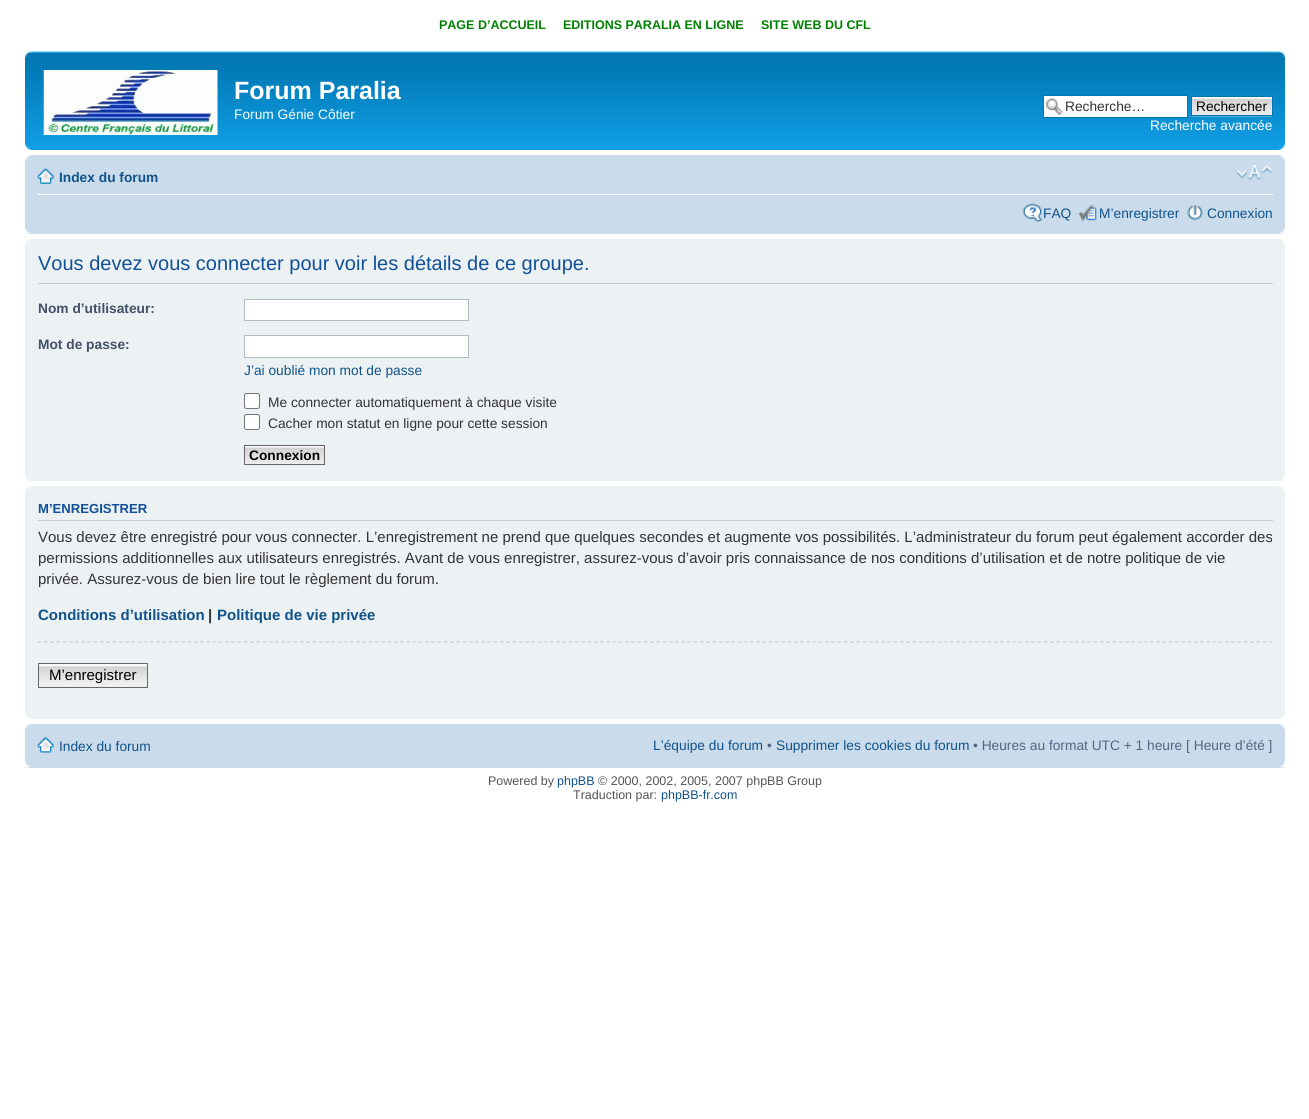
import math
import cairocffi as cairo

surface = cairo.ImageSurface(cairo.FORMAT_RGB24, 1309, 1119)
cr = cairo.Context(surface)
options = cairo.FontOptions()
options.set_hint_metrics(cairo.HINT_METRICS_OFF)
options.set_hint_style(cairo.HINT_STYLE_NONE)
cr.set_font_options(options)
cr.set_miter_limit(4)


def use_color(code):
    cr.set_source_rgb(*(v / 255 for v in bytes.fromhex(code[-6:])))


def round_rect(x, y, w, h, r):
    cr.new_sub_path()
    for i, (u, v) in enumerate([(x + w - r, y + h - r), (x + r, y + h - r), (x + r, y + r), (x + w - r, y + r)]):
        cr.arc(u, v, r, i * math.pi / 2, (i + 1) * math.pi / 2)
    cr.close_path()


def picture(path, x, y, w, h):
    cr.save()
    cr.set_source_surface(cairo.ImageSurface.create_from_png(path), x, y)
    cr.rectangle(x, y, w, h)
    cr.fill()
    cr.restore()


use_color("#ffffff")
cr.paint()
cr.select_font_face("Liberation Sans", cairo.FONT_SLANT_NORMAL, cairo.FONT_WEIGHT_BOLD)
cr.set_font_size(12.5)
use_color("#008000")
cr.move_to(439, 29)
cr.show_text("PAGE D’ACCUEIL")
cr.move_to(563, 29)
cr.show_text("EDITIONS PARALIA EN LIGNE")
cr.move_to(761, 29)
cr.show_text("SITE WEB DU CFL")
picture("img1.png", 25, 51, 1260, 99)
picture("img2.png", 25, 51, 7, 7)
picture("img3.png", 1278, 51, 7, 7)
picture("img4.png", 43, 70, 175, 65)
cr.set_font_size(25)
use_color("#ffffff")
cr.move_to(234, 99)
cr.show_text("Forum Paralia")
cr.select_font_face("Liberation Sans")
cr.set_font_size(13.75)
cr.move_to(234, 119)
cr.show_text("Forum Génie Côtier")
cr.rectangle(1044, 96, 143, 21)
cr.fill()
picture("img5.png", 1046, 98, 17, 17)
cr.rectangle(1043.5, 95.5, 144, 22)
use_color("#0075b0")
cr.set_line_width(1)
cr.stroke()
use_color("#333333")
cr.move_to(1065, 111)
cr.show_text("Recherche…")
use_color("#fafafa")
cr.rectangle(1192, 97, 80, 1)
cr.fill()
picture("img6.png", 1191, 98, 82, 19)
cr.rectangle(1191.5, 96.5, 81, 19)
use_color("#0075b0")
cr.stroke()
use_color("#000000")
cr.move_to(1196, 111)
cr.show_text("Rechercher")
use_color("#ffffff")
cr.move_to(1150, 130)
cr.show_text("Recherche avancée")
picture("img7.png", 25, 143, 7, 7)
picture("img8.png", 1278, 143, 7, 7)
use_color("#cadceb")
cr.rectangle(25, 155, 1260, 79)
cr.fill()
picture("img9.png", 25, 155, 7, 6)
picture("img10.png", 1278, 155, 7, 6)
use_color("#ffffff")
cr.rectangle(38, 194, 1235, 1)
cr.fill()
picture("img11.png", 37, 168, 17, 16)
cr.select_font_face("Liberation Sans", cairo.FONT_SLANT_NORMAL, cairo.FONT_WEIGHT_BOLD)
use_color("#105289")
cr.move_to(59, 182)
cr.show_text("Index du forum")
picture("img12.png", 1236, 165, 37, 15)
picture("img13.png", 1022, 203, 21, 19)
cr.select_font_face("Liberation Sans")
cr.move_to(1043, 218)
cr.show_text("FAQ")
picture("img14.png", 1078, 205, 19, 17)
cr.move_to(1099, 218)
cr.show_text("M’enregistrer")
picture("img15.png", 1187, 205, 16, 16)
cr.move_to(1207, 218)
cr.show_text("Connexion")
picture("img16.png", 25, 227, 6, 7)
picture("img17.png", 1279, 227, 6, 7)
use_color("#ecf1f3")
cr.rectangle(25, 239, 1260, 242)
cr.fill()
picture("img18.png", 25, 239, 6, 6)
picture("img19.png", 1279, 239, 6, 6)
use_color("#cccccc")
cr.rectangle(38, 283, 1235, 1)
cr.fill()
cr.set_font_size(20)
use_color("#115098")
cr.move_to(38, 270)
cr.show_text("Vous devez vous connecter pour voir les détails de ce groupe.")
cr.select_font_face("Liberation Sans", cairo.FONT_SLANT_NORMAL, cairo.FONT_WEIGHT_BOLD)
cr.set_font_size(13.75)
use_color("#425067")
cr.move_to(38, 313)
cr.show_text("Nom d’utilisateur:")
use_color("#ffffff")
cr.rectangle(244.5, 299.5, 224, 21)
cr.fill_preserve()
use_color("#b4bac0")
cr.stroke()
use_color("#425067")
cr.move_to(38, 349)
cr.show_text("Mot de passe:")
use_color("#ffffff")
cr.rectangle(244.5, 335.5, 224, 22)
cr.fill_preserve()
use_color("#b4bac0")
cr.stroke()
cr.select_font_face("Liberation Sans")
use_color("#105289")
cr.move_to(244, 375)
cr.show_text("J’ai oublié mon mot de passe")
use_color("#ffffff")
round_rect(244.5, 393.5, 15, 15, 2)
cr.fill_preserve()
use_color("#767676")
cr.stroke()
use_color("#333333")
cr.move_to(268, 407)
cr.show_text("Me connecter automatiquement à chaque visite")
use_color("#ffffff")
round_rect(244.5, 414.5, 15, 15, 2)
cr.fill_preserve()
use_color("#767676")
cr.stroke()
use_color("#333333")
cr.move_to(268, 428)
cr.show_text("Cacher mon statut en ligne pour cette session")
use_color("#fafafa")
cr.rectangle(245, 446, 79, 1)
cr.fill()
picture("img20.png", 243, 447, 81, 18)
cr.rectangle(244.5, 445.5, 80, 19)
use_color("#666666")
cr.stroke()
cr.select_font_face("Liberation Sans", cairo.FONT_SLANT_NORMAL, cairo.FONT_WEIGHT_BOLD)
use_color("#000000")
cr.move_to(249, 460)
cr.show_text("Connexion")
picture("img21.png", 25, 475, 6, 6)
picture("img22.png", 1279, 475, 6, 6)
use_color("#ecf1f3")
cr.rectangle(25, 486, 1260, 233)
cr.fill()
picture("img23.png", 25, 486, 6, 6)
picture("img24.png", 1280, 486, 5, 6)
use_color("#cccccc")
cr.rectangle(38, 520, 1235, 1)
cr.fill()
cr.set_font_size(13.1)
use_color("#115098")
cr.move_to(38, 513)
cr.show_text("M’ENREGISTRER")
cr.select_font_face("Liberation Sans")
cr.set_font_size(15)
use_color("#333333")
cr.move_to(38, 542)
cr.show_text("Vous devez être enregistré pour vous connecter. L’enregistrement ne prend que quelques secondes et augmente vos possibilités. L’administrateur du forum peut également accorder des")
cr.move_to(38, 563)
cr.show_text("permissions additionnelles aux utilisateurs enregistrés. Avant de vous enregistrer, assurez-vous d’avoir pris connaissance de nos conditions d’utilisation et de notre politique de vie")
cr.move_to(38, 584)
cr.show_text("privée. Assurez-vous de bien lire tout le règlement du forum.")
cr.select_font_face("Liberation Sans", cairo.FONT_SLANT_NORMAL, cairo.FONT_WEIGHT_BOLD)
use_color("#105289")
cr.move_to(38, 620)
cr.show_text("Conditions d’utilisation")
use_color("#333333")
cr.move_to(208, 620)
cr.show_text("|")
use_color("#105289")
cr.move_to(217, 620)
cr.show_text("Politique de vie privée")
cr.new_path()
cr.move_to(37.5, 642)
cr.line_to(1272.5, 642)
use_color("#cccccc")
cr.set_line_width(1.2)
cr.set_dash([3.75, 2.5])
cr.stroke()
picture("img25.png", 37, 665, 110, 23)
use_color("#fafafa")
cr.rectangle(39, 664, 108, 1)
cr.fill()
cr.rectangle(38.5, 663.5, 109, 24)
use_color("#666666")
cr.set_line_width(1)
cr.set_dash([])
cr.stroke()
cr.select_font_face("Liberation Sans")
use_color("#000000")
cr.move_to(49, 680)
cr.show_text("M’enregistrer")
picture("img26.png", 25, 713, 6, 6)
picture("img27.png", 1280, 713, 5, 6)
use_color("#cadceb")
cr.rectangle(25, 724, 1260, 44)
cr.fill()
picture("img28.png", 25, 724, 7, 6)
picture("img29.png", 1279, 724, 6, 6)
picture("img30.png", 37, 737, 17, 16)
cr.set_font_size(13.75)
use_color("#105289")
cr.move_to(59, 751)
cr.show_text("Index du forum")
cr.move_to(653, 750)
cr.show_text("L’équipe du forum")
use_color("#536482")
cr.move_to(767, 750)
cr.show_text("•")
use_color("#105289")
cr.move_to(776, 750)
cr.show_text("Supprimer les cookies du forum")
use_color("#536482")
cr.move_to(973, 750)
cr.show_text("• Heures au format UTC + 1 heure [ Heure d’été ]")
picture("img31.png", 25, 761, 6, 7)
picture("img32.png", 1279, 761, 6, 7)
cr.set_font_size(12.5)
use_color("#555555")
cr.move_to(488, 785)
cr.show_text("Powered by")
use_color("#105289")
cr.move_to(557, 785)
cr.show_text("phpBB")
use_color("#555555")
cr.move_to(598, 785)
cr.show_text("© 2000, 2002, 2005, 2007 phpBB Group")
cr.move_to(573, 799)
cr.show_text("Traduction par:")
use_color("#105289")
cr.move_to(661, 799)
cr.show_text("phpBB-fr.com")
surface.write_to_png("result.png")
